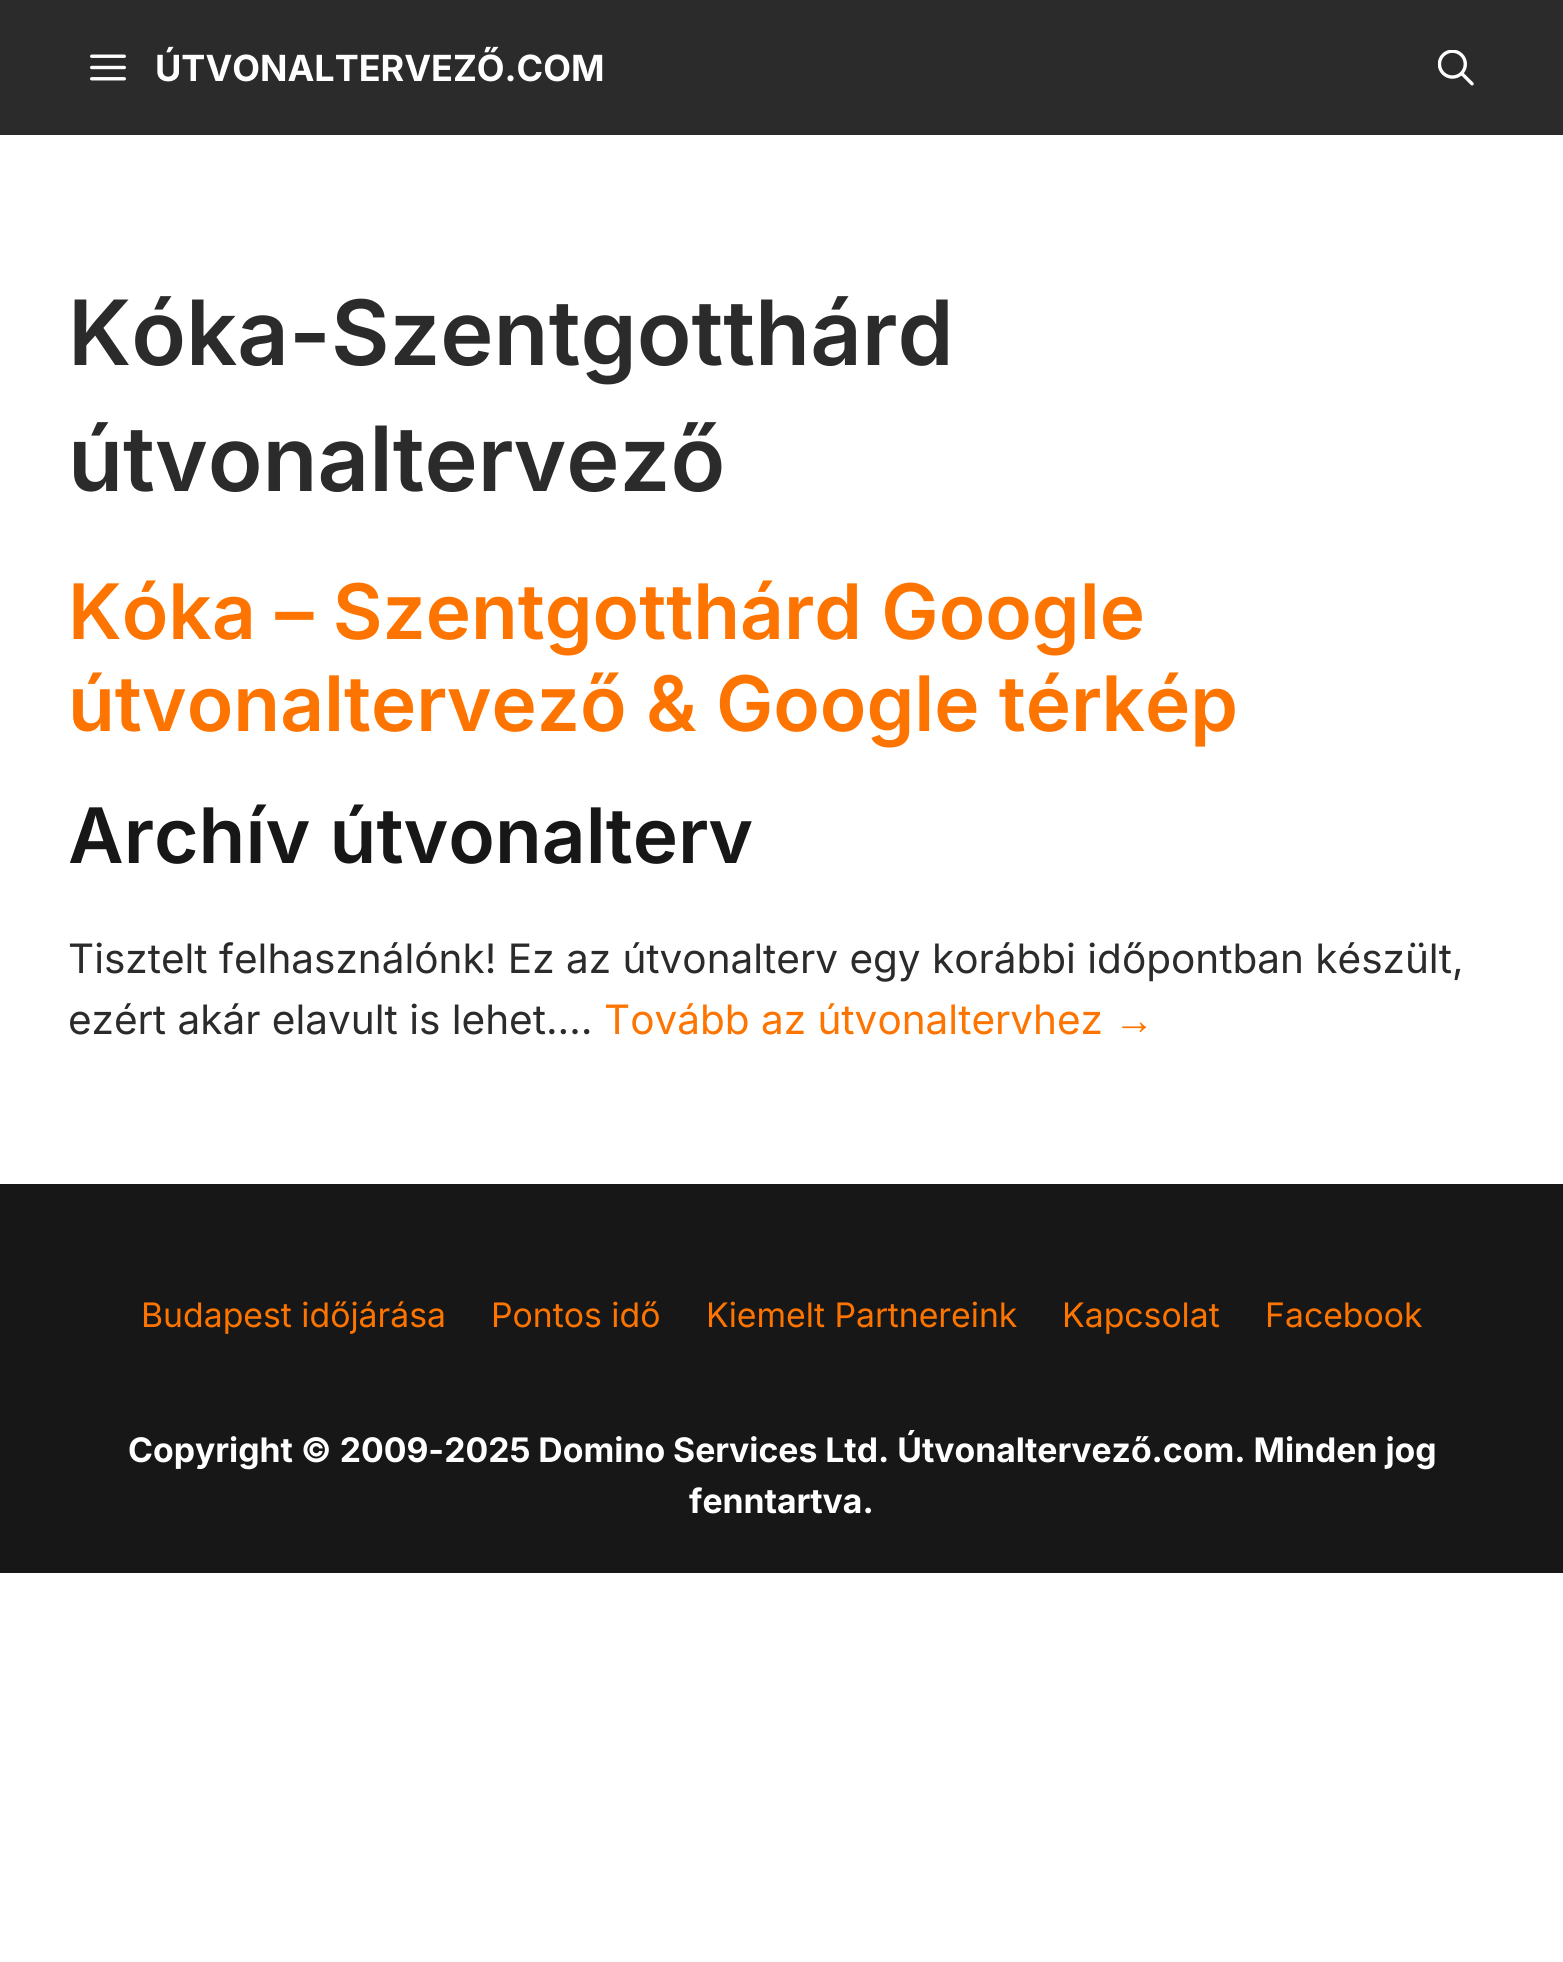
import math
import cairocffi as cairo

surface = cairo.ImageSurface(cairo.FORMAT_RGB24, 1563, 1962)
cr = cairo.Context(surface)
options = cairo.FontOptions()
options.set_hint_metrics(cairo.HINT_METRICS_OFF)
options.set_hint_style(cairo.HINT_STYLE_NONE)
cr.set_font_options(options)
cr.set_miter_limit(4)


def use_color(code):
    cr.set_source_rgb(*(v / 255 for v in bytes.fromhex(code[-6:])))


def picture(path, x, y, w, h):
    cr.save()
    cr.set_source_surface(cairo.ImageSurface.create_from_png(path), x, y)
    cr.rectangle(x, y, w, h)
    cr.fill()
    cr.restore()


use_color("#ffffff")
cr.paint()
use_color("#2b2b2b")
cr.rectangle(0, 0, 1563, 135)
cr.fill()
picture("img1.png", 90, 54, 36, 27)
cr.select_font_face("Inter", cairo.FONT_SLANT_NORMAL, cairo.FONT_WEIGHT_BOLD)
cr.set_font_size(36)
use_color("#ffffff")
cr.move_to(155, 81)
cr.show_text("ÚTVONALTERVEZŐ.COM")
picture("img2.png", 1438, 50, 36, 36)
cr.select_font_face("Inter SemiBold")
cr.set_font_size(90)
use_color("#2b2b2b")
cr.move_to(68, 365)
cr.show_text("Kóka-Szentgotthárd")
cr.move_to(68, 491)
cr.show_text("útvonaltervező")
cr.set_font_size(76.5)
use_color("#fd7401")
cr.move_to(68, 639)
cr.show_text("Kóka – Szentgotthárd Google")
cr.move_to(68, 731)
cr.show_text("útvonaltervező & Google térkép")
use_color("#171717")
cr.move_to(68, 863)
cr.show_text("Archív útvonalterv")
cr.select_font_face("Inter")
cr.set_font_size(40.5)
use_color("#2b2b2b")
cr.move_to(68, 973)
cr.show_text("Tisztelt felhasználónk! Ez az útvonalterv egy korábbi időpontban készült,")
cr.move_to(68, 1034)
cr.show_text("ezért akár elavult is lehet.…")
use_color("#fd7401")
cr.move_to(604, 1034)
cr.show_text("Tovább az útvonaltervhez")
cr.select_font_face("Liberation Sans")
cr.move_to(1114, 1034)
cr.show_text("→")
use_color("#171717")
cr.rectangle(0, 1184, 1563, 389)
cr.fill()
cr.select_font_face("Inter")
cr.set_font_size(33.75)
use_color("#fd7401")
cr.move_to(141, 1327)
cr.show_text("Budapest időjárása")
cr.move_to(491, 1327)
cr.show_text("Pontos idő")
cr.move_to(706, 1327)
cr.show_text("Kiemelt Partnereink")
cr.move_to(1062, 1327)
cr.show_text("Kapcsolat")
cr.move_to(1265, 1327)
cr.show_text("Facebook")
cr.select_font_face("Inter", cairo.FONT_SLANT_NORMAL, cairo.FONT_WEIGHT_BOLD)
use_color("#ffffff")
cr.move_to(128, 1462)
cr.show_text("Copyright © 2009-2025 Domino Services Ltd. Útvonaltervező.com. Minden jog")
cr.move_to(689, 1513)
cr.show_text("fenntartva.")
surface.write_to_png("result.png")
